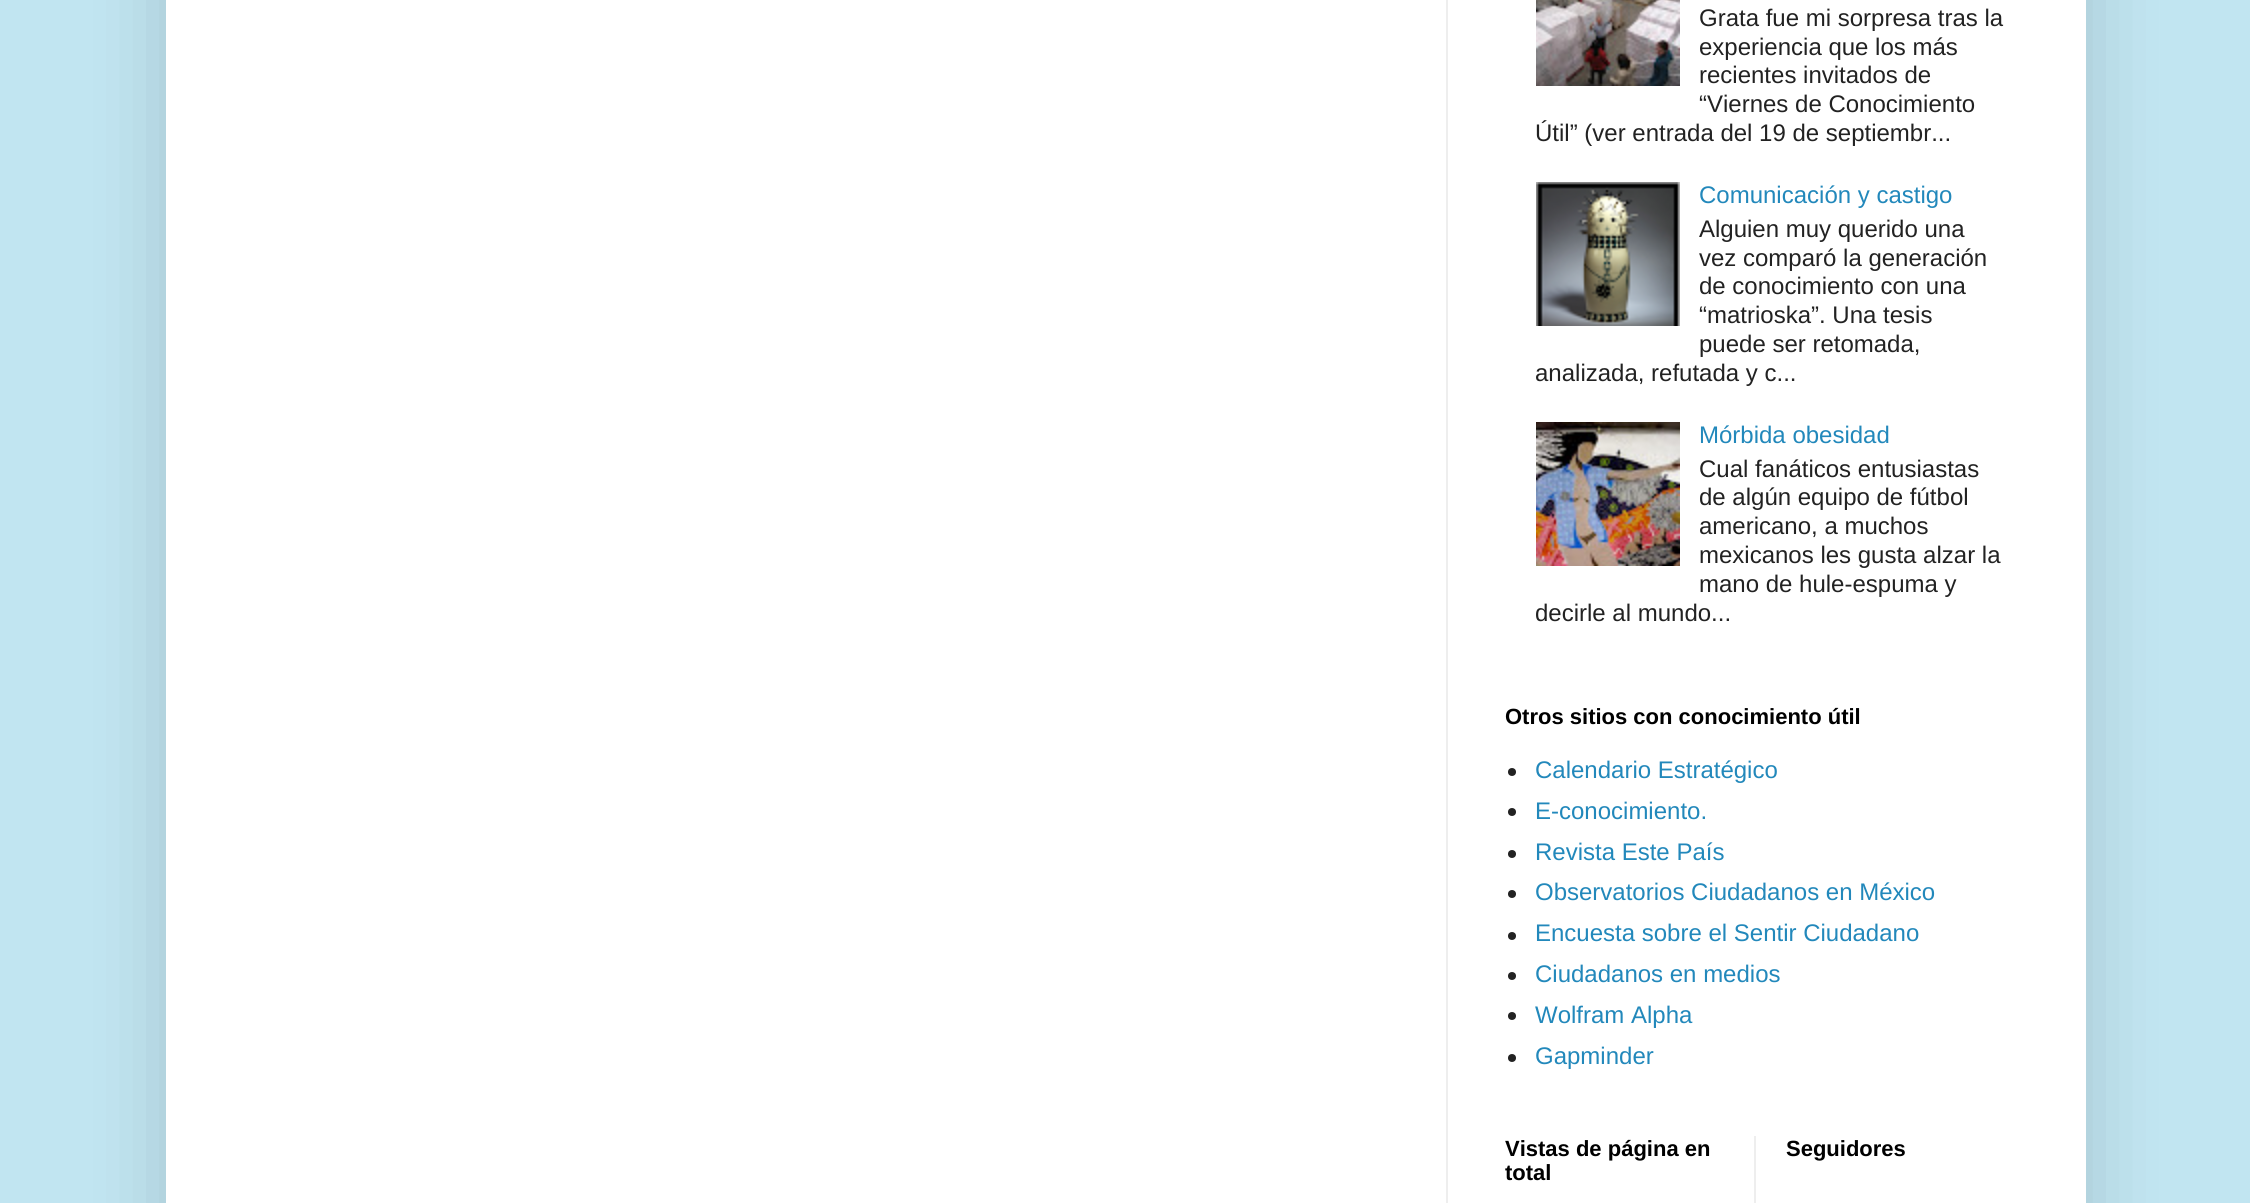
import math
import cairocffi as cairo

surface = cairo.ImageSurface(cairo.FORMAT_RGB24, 2250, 1203)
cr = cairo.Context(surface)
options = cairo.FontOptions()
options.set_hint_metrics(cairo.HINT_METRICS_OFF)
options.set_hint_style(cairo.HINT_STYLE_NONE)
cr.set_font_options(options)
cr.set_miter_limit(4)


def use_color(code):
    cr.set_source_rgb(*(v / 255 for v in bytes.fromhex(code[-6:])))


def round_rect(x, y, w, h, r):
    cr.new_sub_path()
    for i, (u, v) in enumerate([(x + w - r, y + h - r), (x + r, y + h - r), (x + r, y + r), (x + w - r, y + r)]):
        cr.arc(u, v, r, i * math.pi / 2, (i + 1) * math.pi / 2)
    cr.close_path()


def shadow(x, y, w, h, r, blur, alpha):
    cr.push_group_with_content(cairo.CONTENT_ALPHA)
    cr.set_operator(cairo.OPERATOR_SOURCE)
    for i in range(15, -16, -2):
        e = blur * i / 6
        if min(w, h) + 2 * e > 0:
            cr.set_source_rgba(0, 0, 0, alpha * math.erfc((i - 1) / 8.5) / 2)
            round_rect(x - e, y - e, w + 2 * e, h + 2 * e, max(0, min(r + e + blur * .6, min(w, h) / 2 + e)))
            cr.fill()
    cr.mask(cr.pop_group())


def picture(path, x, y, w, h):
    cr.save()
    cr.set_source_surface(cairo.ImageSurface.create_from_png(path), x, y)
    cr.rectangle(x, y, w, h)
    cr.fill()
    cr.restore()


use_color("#c1e5f1")
cr.paint()
use_color("#000000")
shadow(166, -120, 1920, 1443, 0, 40, 0.15)
use_color("#ffffff")
cr.rectangle(166, 0, 1920, 1203)
cr.fill()
use_color("#eeeeee")
cr.rectangle(1446, 0, 2, 1203)
cr.fill()
picture("img1.png", 1536, 0, 144, 86)
cr.select_font_face("Liberation Sans")
cr.set_font_size(24)
use_color("#222222")
cr.move_to(1699, 26)
cr.show_text("Grata fue mi sorpresa tras la")
cr.move_to(1699, 55)
cr.show_text("experiencia que los más")
cr.move_to(1699, 83)
cr.show_text("recientes invitados de")
cr.move_to(1699, 112)
cr.show_text("“Viernes de Conocimiento")
cr.move_to(1535, 141)
cr.show_text("Útil” (ver entrada del 19 de septiembr...")
picture("img2.png", 1536, 182, 144, 144)
use_color("#2288bb")
cr.move_to(1699, 203)
cr.show_text("Comunicación y castigo")
use_color("#222222")
cr.move_to(1699, 237)
cr.show_text("Alguien muy querido una")
cr.move_to(1699, 266)
cr.show_text("vez comparó la generación")
cr.move_to(1699, 294)
cr.show_text("de conocimiento con una")
cr.move_to(1699, 323)
cr.show_text("“matrioska”. Una tesis")
cr.move_to(1699, 352)
cr.show_text("puede ser retomada,")
cr.move_to(1535, 381)
cr.show_text("analizada, refutada y c...")
picture("img3.png", 1536, 422, 144, 144)
use_color("#2288bb")
cr.move_to(1699, 443)
cr.show_text("Mórbida obesidad")
use_color("#222222")
cr.move_to(1699, 477)
cr.show_text("Cual fanáticos entusiastas")
cr.move_to(1699, 505)
cr.show_text("de algún equipo de fútbol")
cr.move_to(1699, 534)
cr.show_text("americano, a muchos")
cr.move_to(1699, 563)
cr.show_text("mexicanos les gusta alzar la")
cr.move_to(1699, 592)
cr.show_text("mano de hule-espuma y")
cr.move_to(1535, 621)
cr.show_text("decirle al mundo...")
cr.select_font_face("Liberation Sans", cairo.FONT_SLANT_NORMAL, cairo.FONT_WEIGHT_BOLD)
cr.set_font_size(22)
use_color("#000000")
cr.move_to(1505, 724)
cr.show_text("Otros sitios con conocimiento útil")
use_color("#222222")
cr.new_path()
cr.arc(1512, 772, 4, 0, 2 * math.pi)
cr.fill()
cr.select_font_face("Liberation Sans")
cr.set_font_size(24)
use_color("#2288bb")
cr.move_to(1535, 778)
cr.show_text("Calendario Estratégico")
use_color("#222222")
cr.new_path()
cr.arc(1512, 812, 4, 0, 2 * math.pi)
cr.fill()
use_color("#2288bb")
cr.move_to(1535, 819)
cr.show_text("E-conocimiento.")
use_color("#222222")
cr.new_path()
cr.arc(1512, 854, 4, 0, 2 * math.pi)
cr.fill()
use_color("#2288bb")
cr.move_to(1535, 860)
cr.show_text("Revista Este País")
use_color("#222222")
cr.new_path()
cr.arc(1512, 894, 4, 0, 2 * math.pi)
cr.fill()
use_color("#2288bb")
cr.move_to(1535, 900)
cr.show_text("Observatorios Ciudadanos en México")
use_color("#222222")
cr.new_path()
cr.arc(1512, 936, 4, 0, 2 * math.pi)
cr.fill()
use_color("#2288bb")
cr.move_to(1535, 941)
cr.show_text("Encuesta sobre el Sentir Ciudadano")
use_color("#222222")
cr.new_path()
cr.arc(1512, 976, 4, 0, 2 * math.pi)
cr.fill()
use_color("#2288bb")
cr.move_to(1535, 982)
cr.show_text("Ciudadanos en medios")
use_color("#222222")
cr.new_path()
cr.arc(1512, 1016, 4, 0, 2 * math.pi)
cr.fill()
use_color("#2288bb")
cr.move_to(1535, 1023)
cr.show_text("Wolfram Alpha")
use_color("#222222")
cr.new_path()
cr.arc(1512, 1058, 4, 0, 2 * math.pi)
cr.fill()
use_color("#2288bb")
cr.move_to(1535, 1064)
cr.show_text("Gapminder")
cr.select_font_face("Liberation Sans", cairo.FONT_SLANT_NORMAL, cairo.FONT_WEIGHT_BOLD)
cr.set_font_size(22)
use_color("#000000")
cr.move_to(1505, 1156)
cr.show_text("Vistas de página en")
cr.move_to(1505, 1180)
cr.show_text("total")
use_color("#eeeeee")
cr.rectangle(1754, 1136, 2, 67)
cr.fill()
use_color("#000000")
cr.move_to(1786, 1156)
cr.show_text("Seguidores")
surface.write_to_png("result.png")
